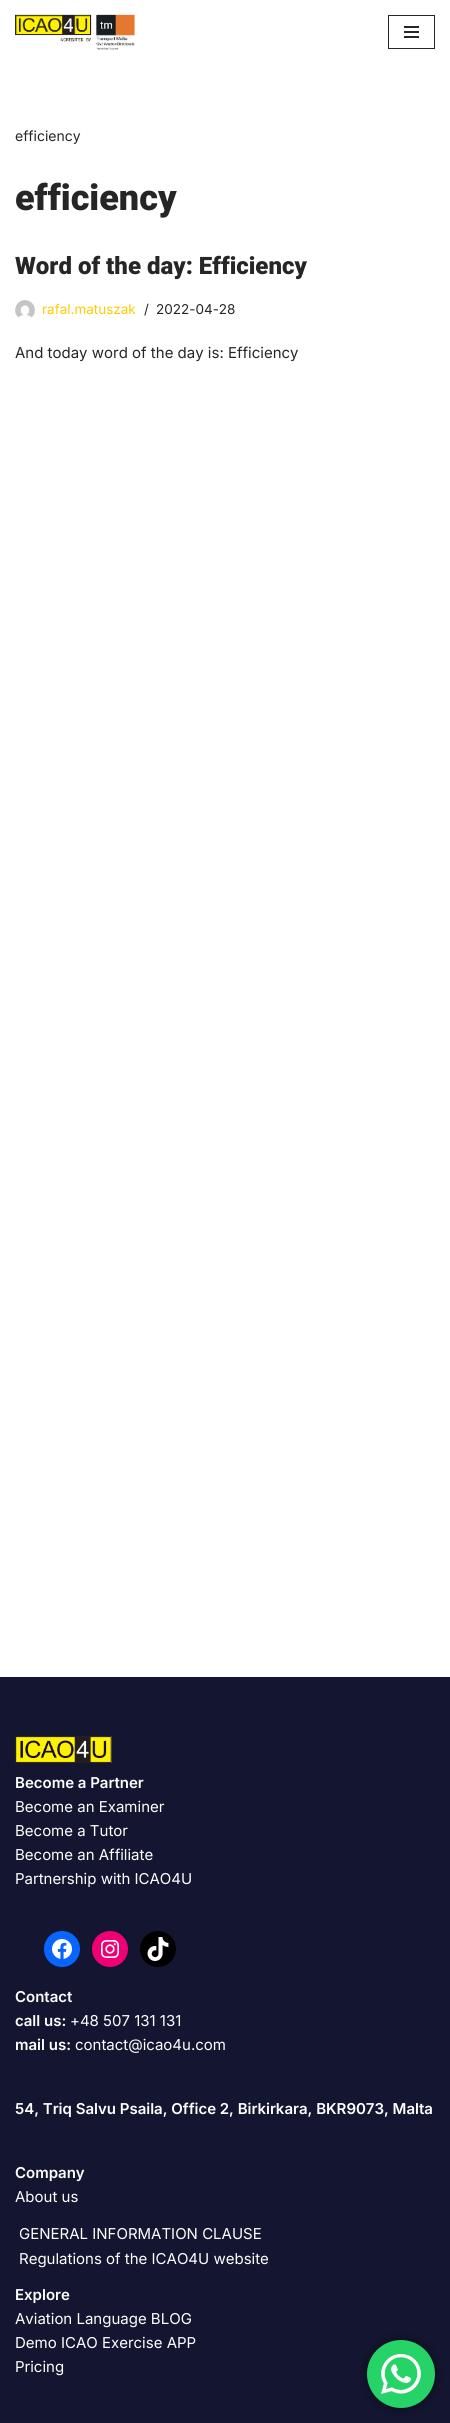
import math
import cairocffi as cairo

surface = cairo.ImageSurface(cairo.FORMAT_RGB24, 450, 2423)
cr = cairo.Context(surface)
options = cairo.FontOptions()
options.set_hint_metrics(cairo.HINT_METRICS_OFF)
options.set_hint_style(cairo.HINT_STYLE_NONE)
cr.set_font_options(options)
cr.set_miter_limit(4)


def use_color(code):
    cr.set_source_rgb(*(v / 255 for v in bytes.fromhex(code[-6:])))


def round_rect(x, y, w, h, r):
    cr.new_sub_path()
    for i, (u, v) in enumerate([(x + w - r, y + h - r), (x + r, y + h - r), (x + r, y + r), (x + w - r, y + r)]):
        cr.arc(u, v, r, i * math.pi / 2, (i + 1) * math.pi / 2)
    cr.close_path()


def shadow(x, y, w, h, r, blur, alpha):
    cr.push_group_with_content(cairo.CONTENT_ALPHA)
    cr.set_operator(cairo.OPERATOR_SOURCE)
    for i in range(15, -16, -2):
        e = blur * i / 6
        if min(w, h) + 2 * e > 0:
            cr.set_source_rgba(0, 0, 0, alpha * math.erfc((i - 1) / 8.5) / 2)
            round_rect(x - e, y - e, w + 2 * e, h + 2 * e, max(0, min(r + e + blur * .6, min(w, h) / 2 + e)))
            cr.fill()
    cr.mask(cr.pop_group())


def picture(path, x, y, w, h):
    cr.save()
    cr.set_source_surface(cairo.ImageSurface.create_from_png(path), x, y)
    cr.rectangle(x, y, w, h)
    cr.fill()
    cr.restore()


use_color("#ffffff")
cr.paint()
picture("img1.png", 15, 14, 120, 36)
cr.rectangle(388.5, 15.5, 46, 33)
use_color("#272626")
cr.set_line_width(1)
cr.stroke()
cr.rectangle(404, 26, 15, 2)
cr.fill()
cr.rectangle(404, 31, 15, 2)
cr.fill()
cr.rectangle(404, 36, 15, 2)
cr.fill()
cr.select_font_face("Inter")
cr.set_font_size(14)
cr.move_to(15, 141)
cr.show_text("efficiency")
cr.select_font_face("Roboto Black")
cr.set_font_size(36)
cr.move_to(15, 210)
cr.show_text("efficiency")
cr.set_font_size(24)
cr.move_to(15, 274)
cr.show_text("Word of the day: Efficiency")
picture("img2.png", 15, 300, 20, 18)
cr.select_font_face("Inter")
cr.set_font_size(13.5)
use_color("#ffcc00")
cr.move_to(42, 314)
cr.show_text("rafal.matuszak")
use_color("#272626")
cr.move_to(144, 314)
cr.show_text("/")
cr.move_to(156, 314)
cr.show_text("2022-04-28")
cr.set_font_size(15)
cr.move_to(15, 358)
cr.show_text("And today word of the day is: Efficiency")
use_color("#141631")
cr.rectangle(0, 1677, 450, 746)
cr.fill()
picture("img3.png", 15, 1736, 97, 27)
cr.select_font_face("Inter SemiBold")
use_color("#ffffff")
cr.move_to(15, 1788)
cr.show_text("Become a Partner")
cr.select_font_face("Inter")
cr.move_to(15, 1812)
cr.show_text("Become an Examiner")
cr.move_to(15, 1836)
cr.show_text("Become a Tutor")
cr.move_to(15, 1860)
cr.show_text("Become an Affiliate")
cr.move_to(15, 1884)
cr.show_text("Partnership with ICAO4U")
use_color("#0866ff")
cr.new_path()
cr.arc(62, 1949, 18, 0, 2 * math.pi)
cr.fill()
picture("img4.png", 52, 1939, 20, 20)
use_color("#f00075")
cr.arc(110, 1949, 18, 0, 2 * math.pi)
cr.fill()
picture("img5.png", 101, 1940, 18, 18)
use_color("#000000")
cr.arc(158, 1949, 18, 0, 2 * math.pi)
cr.fill()
picture("img6.png", 147, 1937, 22, 24)
cr.select_font_face("Inter SemiBold")
use_color("#ffffff")
cr.move_to(15, 2002)
cr.show_text("Contact")
cr.move_to(15, 2026)
cr.show_text("call us:")
cr.select_font_face("Inter")
cr.move_to(70, 2026)
cr.show_text("+48 507 131 131")
cr.select_font_face("Inter SemiBold")
cr.move_to(15, 2050)
cr.show_text("mail us:")
cr.select_font_face("Inter")
cr.move_to(75, 2050)
cr.show_text("contact@icao4u.com")
cr.select_font_face("Inter SemiBold")
cr.move_to(15, 2114)
cr.show_text("54, Triq Salvu Psaila, Office 2, Birkirkara, BKR9073, Malta")
cr.move_to(15, 2178)
cr.show_text("Company")
cr.select_font_face("Inter")
cr.move_to(15, 2202)
cr.show_text("About us")
cr.move_to(19, 2239)
cr.show_text("GENERAL INFORMATION CLAUSE")
cr.move_to(19, 2264)
cr.show_text("Regulations of the ICAO4U website")
cr.select_font_face("Inter SemiBold")
cr.move_to(15, 2300)
cr.show_text("Explore")
cr.select_font_face("Inter")
cr.move_to(15, 2324)
cr.show_text("Aviation Language BLOG")
cr.move_to(15, 2348)
cr.show_text("Demo ICAO Exercise APP")
cr.move_to(15, 2372)
cr.show_text("Pricing")
use_color("#000000")
shadow(367, 2340, 68, 68, 34, 5.5, 0.5)
use_color("#25d366")
cr.arc(401, 2374, 34, 0, 2 * math.pi)
cr.fill()
picture("img7.png", 381, 2354, 40, 40)
surface.write_to_png("result.png")
